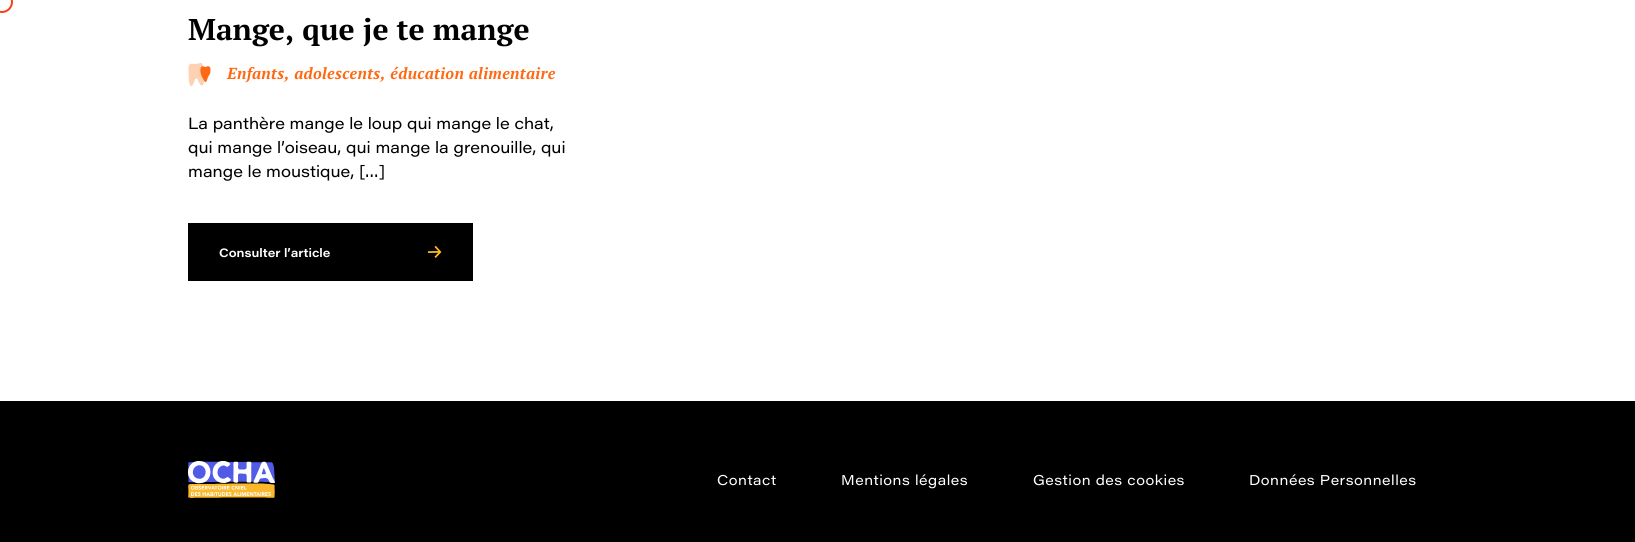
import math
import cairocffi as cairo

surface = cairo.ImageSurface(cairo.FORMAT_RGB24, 1635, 542)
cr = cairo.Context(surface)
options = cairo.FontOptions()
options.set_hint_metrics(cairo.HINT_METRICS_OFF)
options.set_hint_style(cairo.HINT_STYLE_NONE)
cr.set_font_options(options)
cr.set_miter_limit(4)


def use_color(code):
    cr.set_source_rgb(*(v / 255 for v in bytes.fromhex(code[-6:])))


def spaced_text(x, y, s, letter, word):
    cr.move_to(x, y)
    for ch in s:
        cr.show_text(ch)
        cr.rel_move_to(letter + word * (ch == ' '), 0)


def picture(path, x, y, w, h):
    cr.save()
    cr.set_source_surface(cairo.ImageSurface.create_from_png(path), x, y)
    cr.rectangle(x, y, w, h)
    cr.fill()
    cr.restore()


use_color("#ffffff")
cr.paint()
cr.arc(2, 2, 10, 0, 2 * math.pi)
use_color("#f34213")
cr.stroke()
cr.select_font_face("PT Serif", cairo.FONT_SLANT_NORMAL, cairo.FONT_WEIGHT_BOLD)
cr.set_font_size(30)
use_color("#000000")
cr.move_to(188, 40)
cr.show_text("Mange, que je te mange")
picture("img1.png", 188, 63, 16, 23)
picture("img2.png", 200, 66, 11, 16)
cr.select_font_face("PT Serif", cairo.FONT_SLANT_ITALIC, cairo.FONT_WEIGHT_BOLD)
cr.set_font_size(16)
use_color("#ff6913")
spaced_text(227, 79, "Enfants, adolescents, éducation alimentaire", 0.3, 0)
cr.select_font_face("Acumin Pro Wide")
use_color("#000000")
cr.move_to(188, 129)
cr.show_text("La panthère mange le loup qui mange le chat,")
cr.move_to(188, 153)
cr.show_text("qui mange l’oiseau, qui mange la grenouille, qui")
cr.move_to(188, 177)
cr.show_text("mange le moustique, […]")
cr.rectangle(188, 223, 285, 58)
cr.fill()
cr.select_font_face("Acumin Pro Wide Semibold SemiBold")
cr.set_font_size(12)
use_color("#ffffff")
cr.move_to(219, 257)
cr.show_text("Consulter l’article")
picture("img3.png", 428, 245, 14, 13)
use_color("#000000")
cr.rectangle(0, 401, 1635, 141)
cr.fill()
picture("img4.png", 188, 461, 87, 37)
cr.select_font_face("Acumin Pro Wide")
cr.set_font_size(14)
use_color("#ffffff")
spaced_text(717, 485, "Contact", 0.5, 0)
spaced_text(841, 485, "Mentions légales", 0.5, 0)
spaced_text(1033, 485, "Gestion des cookies", 0.5, 0)
spaced_text(1249, 485, "Données Personnelles", 0.5, 0)
surface.write_to_png("result.png")
